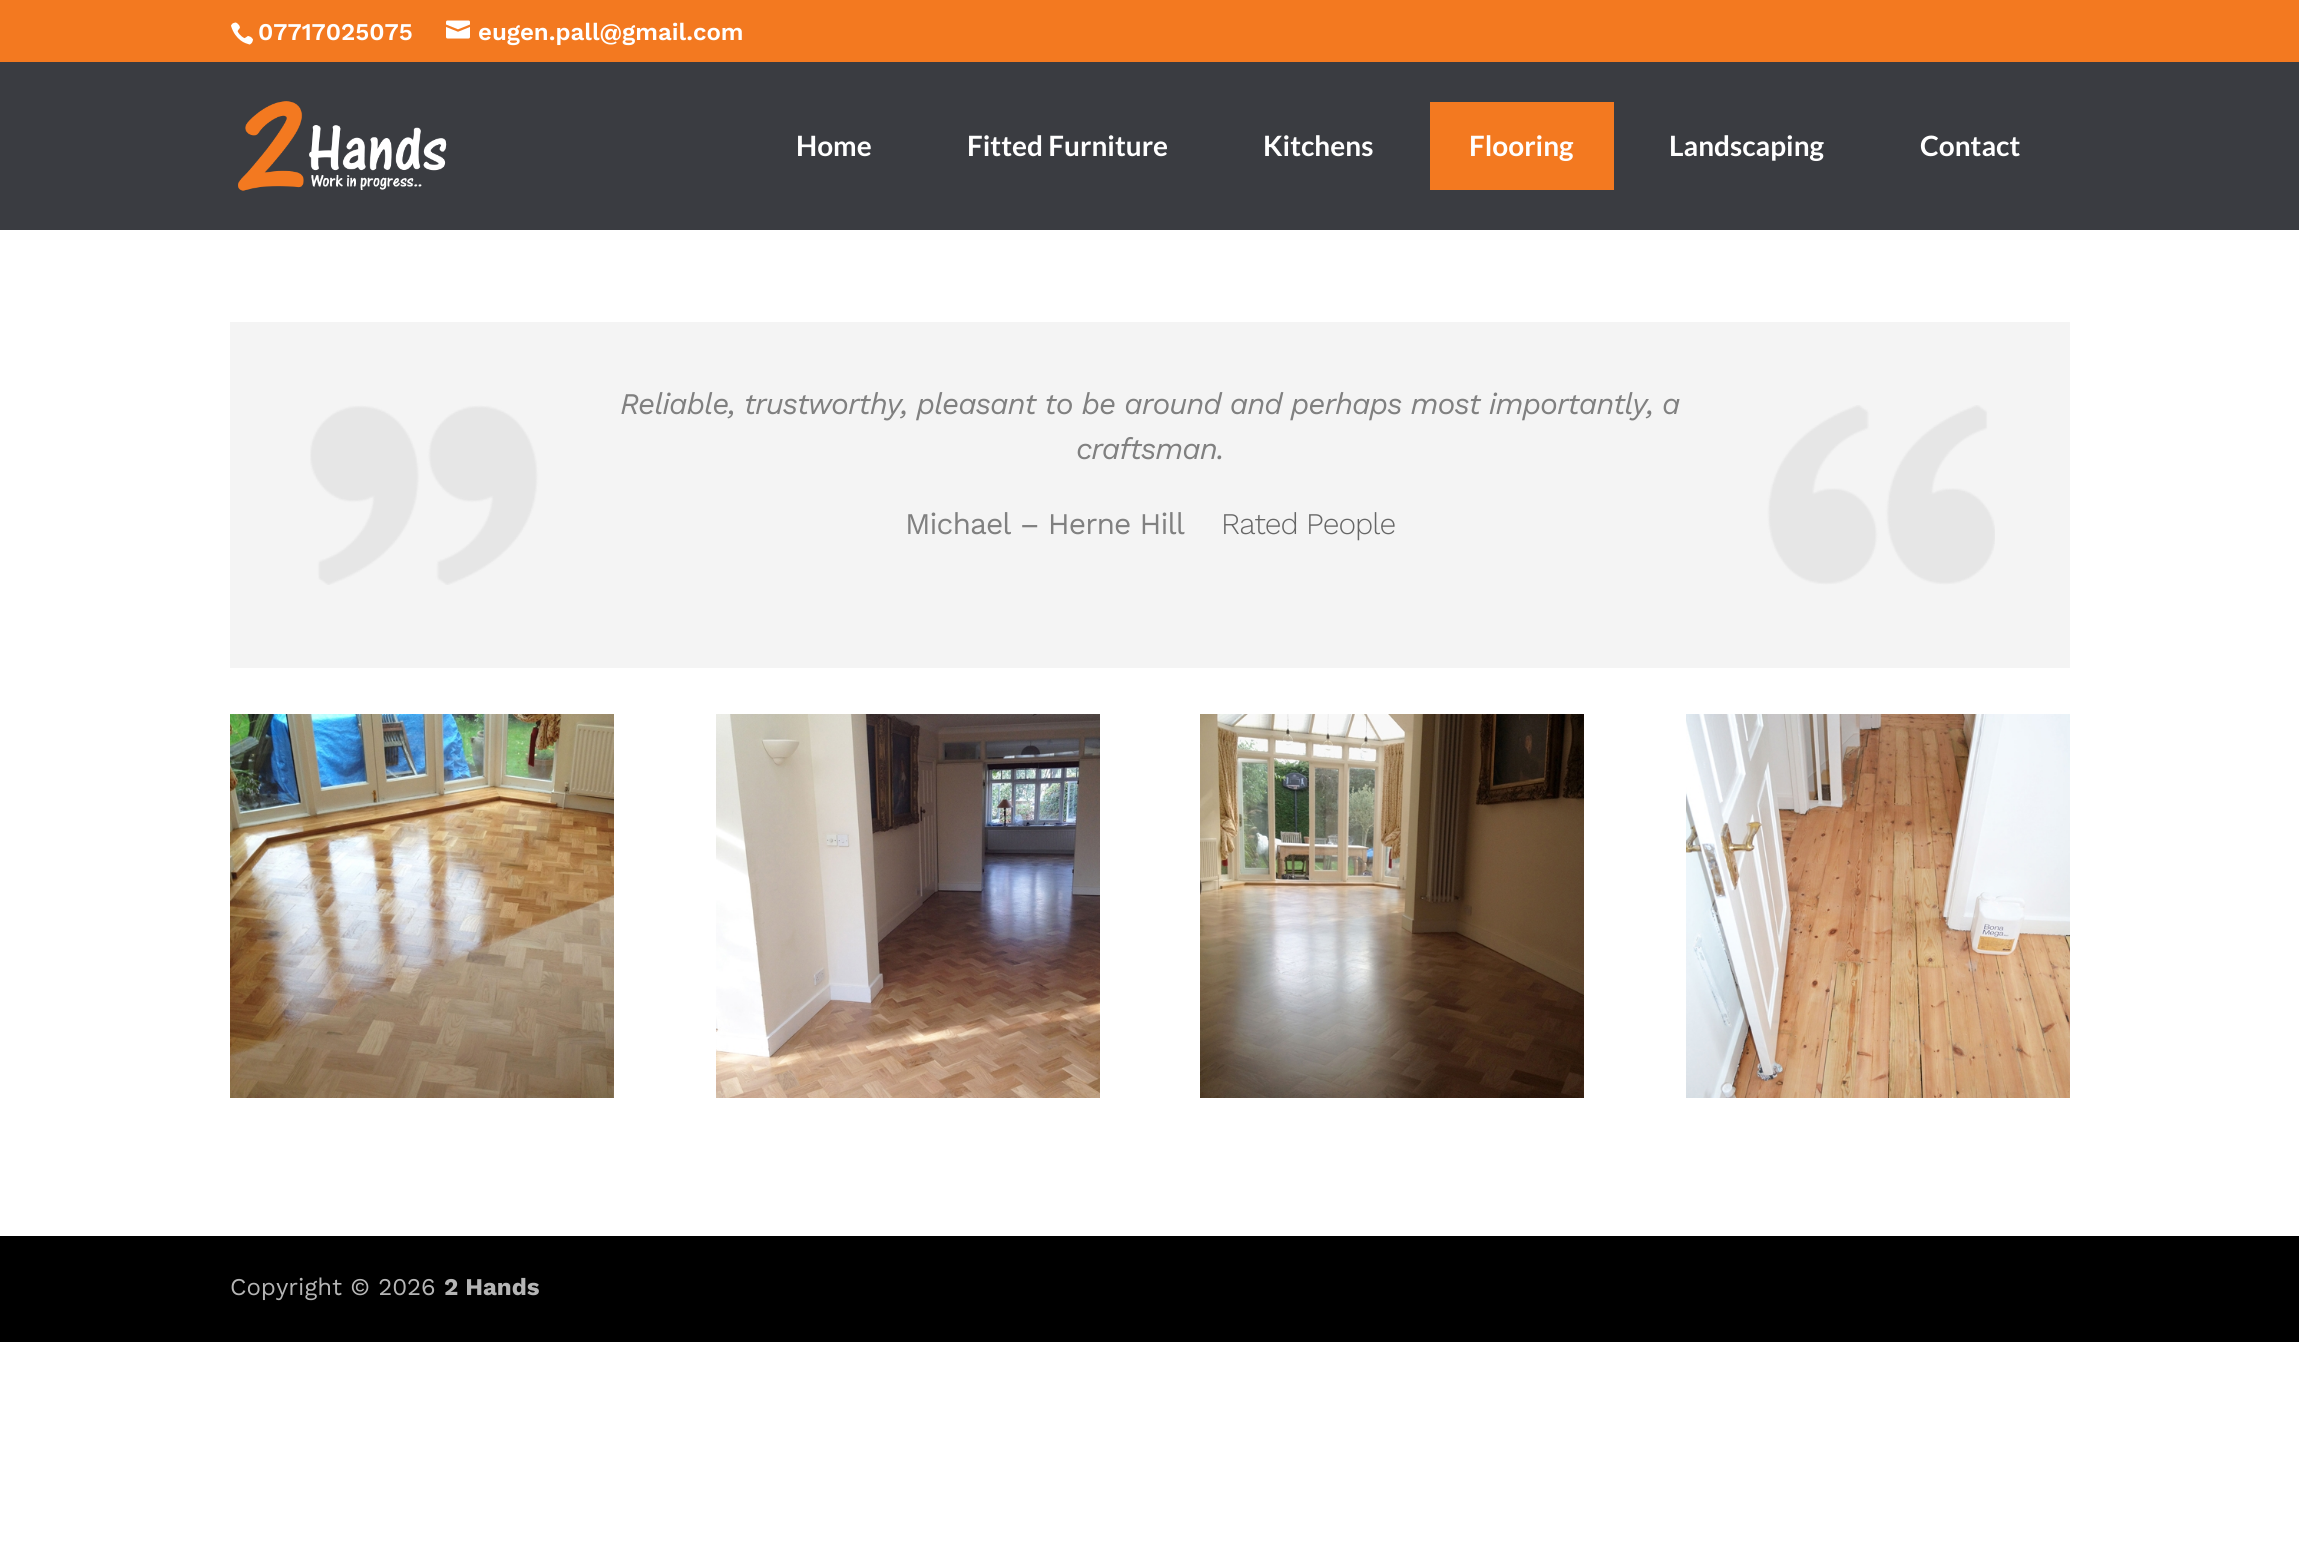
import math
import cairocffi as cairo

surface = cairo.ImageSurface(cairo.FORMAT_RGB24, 2299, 1547)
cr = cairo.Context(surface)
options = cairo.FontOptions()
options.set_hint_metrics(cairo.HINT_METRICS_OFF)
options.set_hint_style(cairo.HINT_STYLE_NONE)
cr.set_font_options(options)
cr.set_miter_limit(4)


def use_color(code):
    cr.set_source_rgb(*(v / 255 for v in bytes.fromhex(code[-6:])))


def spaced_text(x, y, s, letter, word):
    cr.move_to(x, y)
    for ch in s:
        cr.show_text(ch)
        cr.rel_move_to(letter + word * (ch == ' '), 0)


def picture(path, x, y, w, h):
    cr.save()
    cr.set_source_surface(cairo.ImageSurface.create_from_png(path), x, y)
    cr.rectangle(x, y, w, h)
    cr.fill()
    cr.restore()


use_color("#ffffff")
cr.paint()
use_color("#f37920")
cr.rectangle(0, 0, 2299, 62)
cr.fill()
picture("img1.png", 231, 22, 22, 23)
cr.select_font_face("Work Sans SemiBold")
cr.set_font_size(24)
use_color("#ffffff")
cr.move_to(258, 40)
cr.show_text("07717025075")
picture("img2.png", 446, 20, 24, 19)
cr.move_to(478, 40)
cr.show_text("eugen.pall@gmail.com")
use_color("#3a3c41")
cr.rectangle(0, 62, 2299, 168)
cr.fill()
picture("img3.png", 238, 101, 209, 90)
cr.select_font_face("Lato", cairo.FONT_SLANT_NORMAL, cairo.FONT_WEIGHT_BOLD)
cr.set_font_size(28)
use_color("#ffffff")
cr.move_to(796, 156)
cr.show_text("Home")
cr.move_to(967, 156)
cr.show_text("Fitted Furniture")
cr.move_to(1263, 156)
cr.show_text("Kitchens")
use_color("#f37920")
cr.rectangle(1430, 102, 184, 88)
cr.fill()
use_color("#ffffff")
cr.move_to(1469, 156)
cr.show_text("Flooring")
cr.move_to(1669, 156)
cr.show_text("Landscaping")
cr.move_to(1920, 156)
cr.show_text("Contact")
use_color("#f4f4f4")
cr.rectangle(230, 322, 1840, 346)
cr.fill()
picture("img4.png", 310, 405, 1685, 180)
cr.select_font_face("Work Sans", cairo.FONT_SLANT_ITALIC)
cr.set_font_size(30)
use_color("#808080")
spaced_text(620, 414, "Reliable, trustworthy, pleasant to be around and perhaps most importantly, a", -1, 0)
spaced_text(1076, 459, "craftsman.", -1, 0)
cr.select_font_face("Work Sans")
spaced_text(905, 534, "Michael – Herne Hill", -1, 0)
cr.select_font_face("Work Sans Light")
use_color("#666666")
spaced_text(1221, 534, "Rated People", -1, 0)
picture("img5.png", 230, 714, 384, 384)
picture("img6.png", 716, 714, 384, 384)
picture("img7.png", 1200, 714, 384, 384)
picture("img8.png", 1686, 714, 384, 384)
use_color("#000000")
cr.rectangle(0, 1236, 2299, 106)
cr.fill()
cr.select_font_face("Work Sans")
cr.set_font_size(24)
use_color("#b5b5b5")
cr.move_to(230, 1295)
cr.show_text("Copyright © 2026")
cr.select_font_face("Work Sans", cairo.FONT_SLANT_NORMAL, cairo.FONT_WEIGHT_BOLD)
cr.move_to(444, 1295)
cr.show_text("2 Hands")
surface.write_to_png("result.png")
